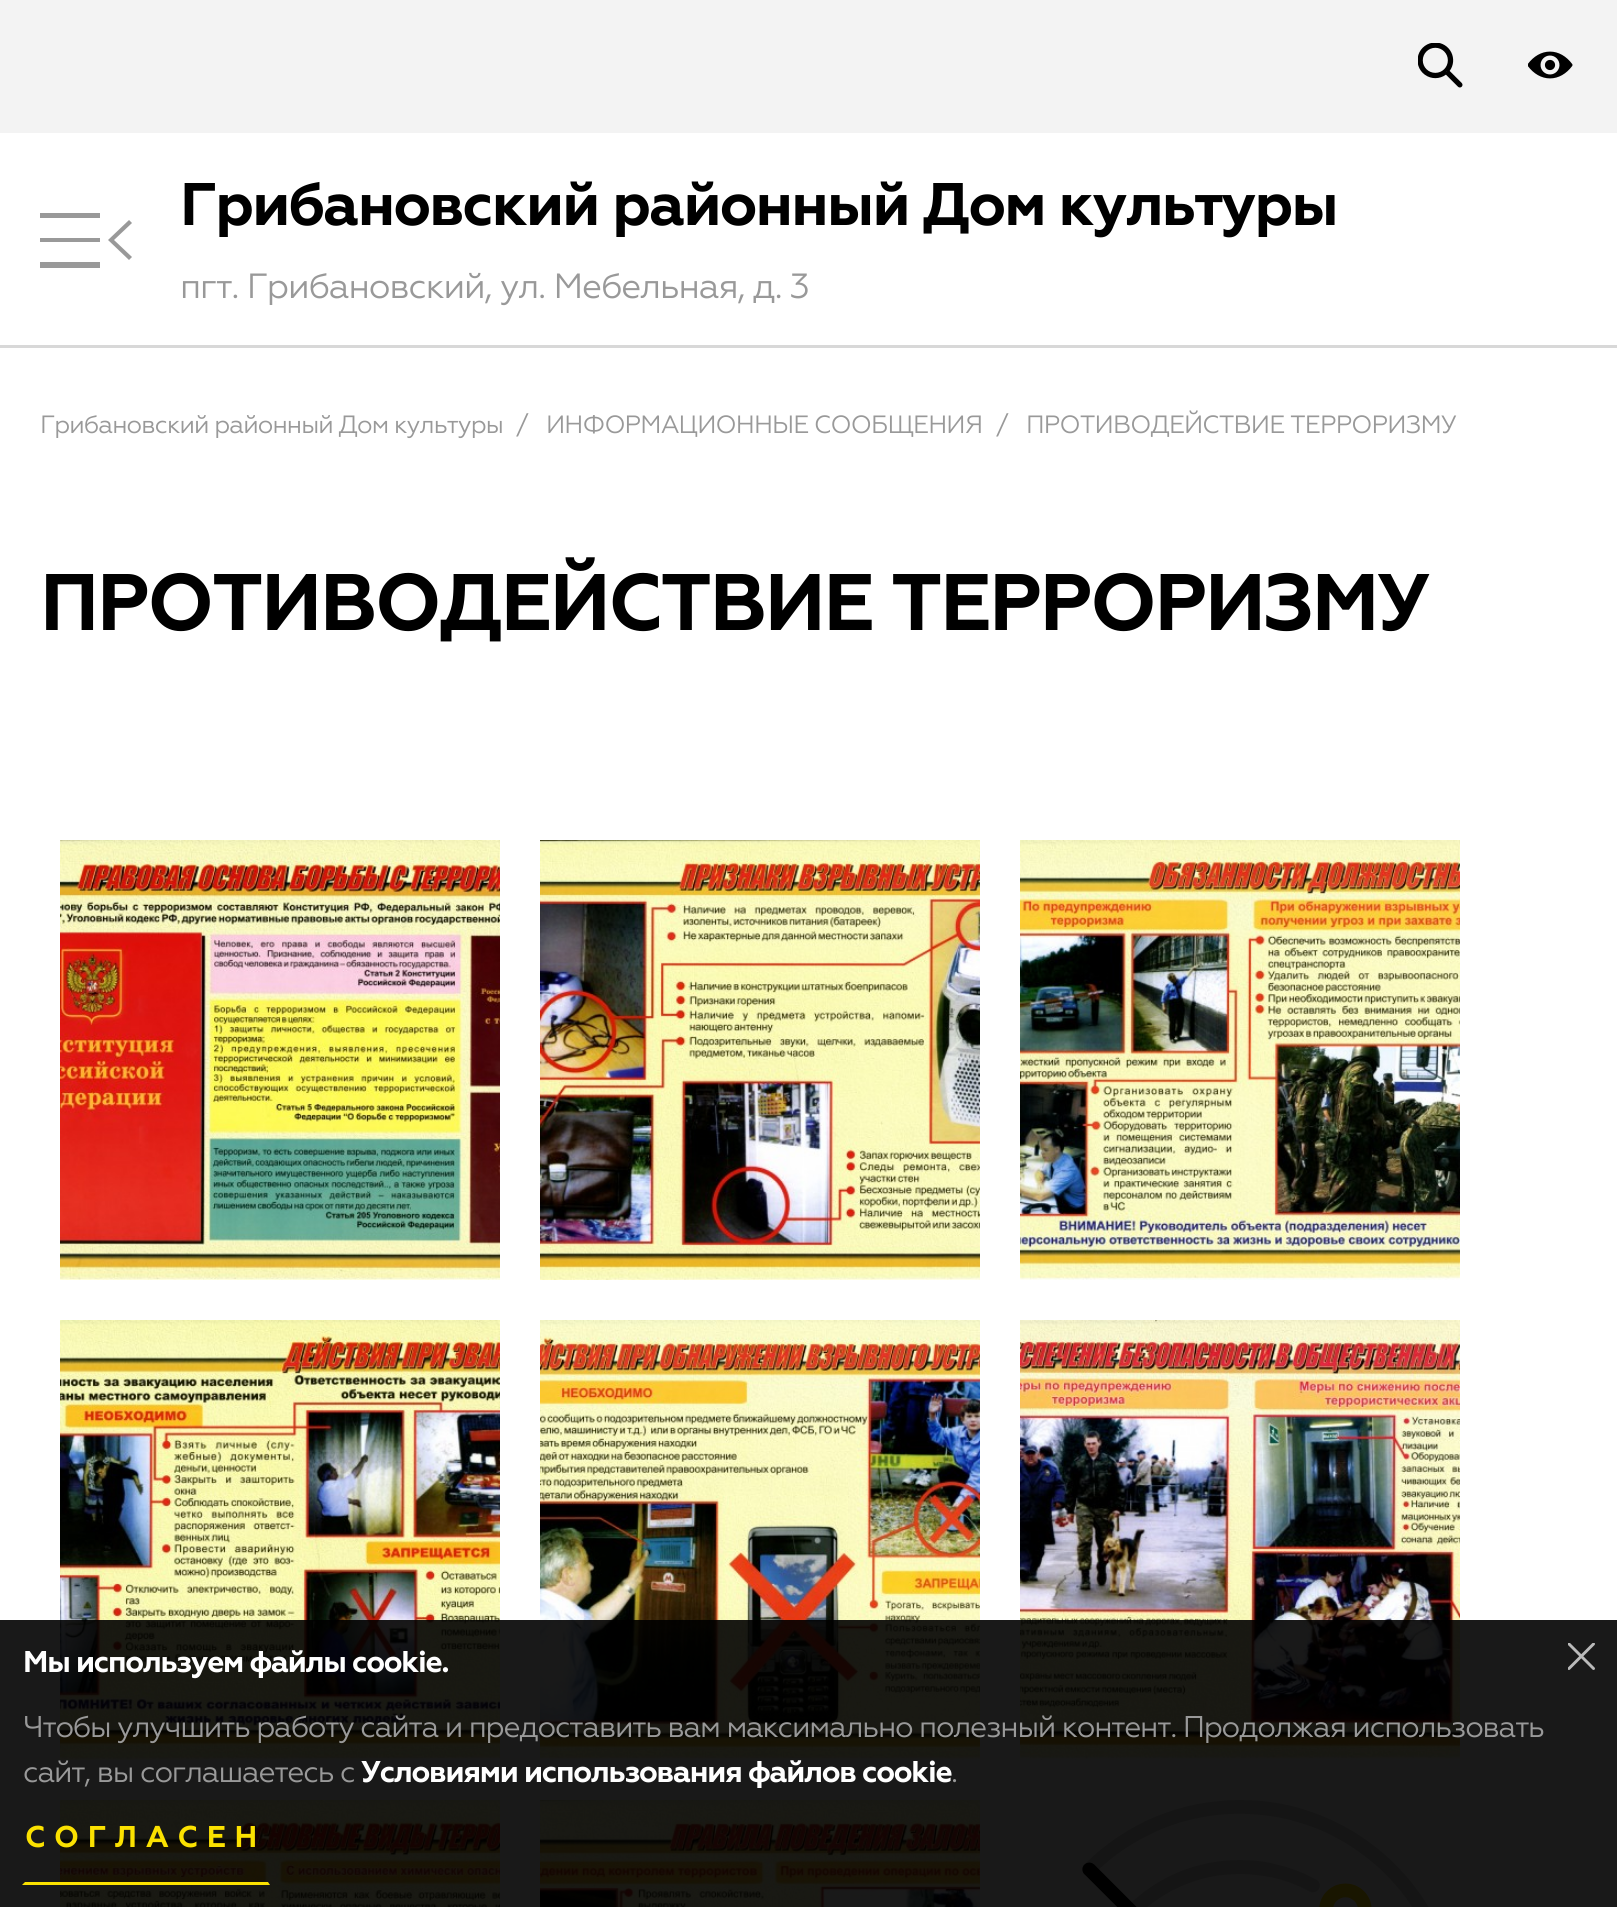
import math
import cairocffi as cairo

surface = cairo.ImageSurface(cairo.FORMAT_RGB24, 1617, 1907)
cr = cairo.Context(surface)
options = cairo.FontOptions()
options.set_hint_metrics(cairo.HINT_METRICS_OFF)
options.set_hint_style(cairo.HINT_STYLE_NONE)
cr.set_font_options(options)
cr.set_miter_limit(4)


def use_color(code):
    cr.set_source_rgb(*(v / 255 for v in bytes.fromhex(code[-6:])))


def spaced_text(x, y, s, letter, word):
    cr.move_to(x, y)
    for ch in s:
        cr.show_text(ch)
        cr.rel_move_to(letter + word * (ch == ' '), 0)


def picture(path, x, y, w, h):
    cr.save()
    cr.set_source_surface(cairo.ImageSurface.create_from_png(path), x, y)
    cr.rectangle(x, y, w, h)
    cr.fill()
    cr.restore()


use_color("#ffffff")
cr.paint()
use_color("#f3f3f3")
cr.rectangle(0, 0, 1617, 133)
cr.fill()
picture("img1.png", 1418, 43, 45, 45)
picture("img2.png", 1528, 51, 45, 28)
use_color("#d8d8d8")
cr.rectangle(0, 345, 1617, 3)
cr.fill()
cr.save()
cr.rectangle(40, 213, 60, 55)
cr.clip()
use_color("#999999")
cr.new_path()
cr.move_to(40, 212)
cr.line_to(100, 212)
cr.line_to(100, 218)
cr.line_to(40, 218)
cr.close_path()
cr.move_to(40, 238)
cr.line_to(100, 238)
cr.line_to(100, 242)
cr.line_to(40, 242)
cr.close_path()
cr.move_to(40, 262)
cr.line_to(100, 262)
cr.line_to(100, 268)
cr.line_to(40, 268)
cr.close_path()
cr.fill()
cr.restore()
use_color("#999999")
cr.new_path()
cr.move_to(132, 223)
cr.line_to(129, 220)
cr.line_to(108, 240)
cr.line_to(129, 260)
cr.line_to(132, 257)
cr.line_to(114, 240)
cr.close_path()
cr.fill()
cr.select_font_face("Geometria", cairo.FONT_SLANT_NORMAL, cairo.FONT_WEIGHT_BOLD)
cr.set_font_size(60)
use_color("#000000")
spaced_text(180, 225, "Грибановский районный Дом культуры", -1.75, 0)
cr.select_font_face("Geometria")
cr.set_font_size(35)
use_color("#999999")
spaced_text(180, 298, "пгт. Грибановский, ул. Мебельная, д. 3", -1.1, 0)
cr.set_font_size(25)
spaced_text(40, 433, "Грибановский районный Дом культуры", -0.9, 0)
spaced_text(516, 433, "/", -0.9, 0)
spaced_text(546, 433, "ИНФОРМАЦИОННЫЕ СООБЩЕНИЯ", -0.9, 0)
spaced_text(996, 433, "/", -0.9, 0)
spaced_text(1026, 433, "ПРОТИВОДЕЙСТВИЕ ТЕРРОРИЗМУ", -0.9, 0)
cr.select_font_face("Geometria", cairo.FONT_SLANT_NORMAL, cairo.FONT_WEIGHT_BOLD)
cr.set_font_size(80)
use_color("#000000")
spaced_text(40, 630, "ПРОТИВОДЕЙСТВИЕ ТЕРРОРИЗМУ", -2.25, 0)
picture("img3.png", 60, 840, 440, 440)
picture("img4.png", 540, 840, 440, 440)
picture("img5.png", 1020, 840, 440, 440)
picture("img6.png", 60, 1320, 440, 440)
picture("img7.png", 540, 1320, 440, 440)
picture("img8.png", 1020, 1320, 440, 440)
picture("img9.png", 60, 1800, 440, 107)
picture("img10.png", 540, 1800, 440, 107)
picture("img11.png", 1082, 1800, 347, 107)
cr.set_source_rgba(0, 0, 0, 0.9)
cr.rectangle(0, 1620, 1617, 287)
cr.fill()
cr.set_font_size(30)
use_color("#ffffff")
spaced_text(23, 1672, "Мы используем файлы cookie.", -1.25, 0)
picture("img12.png", 1568, 1643, 27, 27)
cr.select_font_face("Geometria")
use_color("#999999")
spaced_text(23, 1737, "Чтобы улучшить работу сайта и предоставить вам максимально полезный контент. Продолжая использовать", -1.25, 0)
spaced_text(23, 1782, "сайт, вы соглашаетесь с", -1.25, 0)
cr.select_font_face("Geometria", cairo.FONT_SLANT_NORMAL, cairo.FONT_WEIGHT_BOLD)
use_color("#ffffff")
spaced_text(361, 1782, "Условиями использования файлов cookie", -1.25, 0)
cr.select_font_face("Geometria")
use_color("#999999")
spaced_text(951, 1782, ".", -1.25, 0)
use_color("#fbe100")
cr.new_path()
cr.move_to(270, 1885)
cr.line_to(22, 1885)
cr.line_to(25, 1882)
cr.line_to(268, 1882)
cr.close_path()
cr.fill()
cr.select_font_face("Geometria", cairo.FONT_SLANT_NORMAL, cairo.FONT_WEIGHT_BOLD)
spaced_text(25, 1847, "СОГЛАСЕН", 8.75, 0)
surface.write_to_png("result.png")
